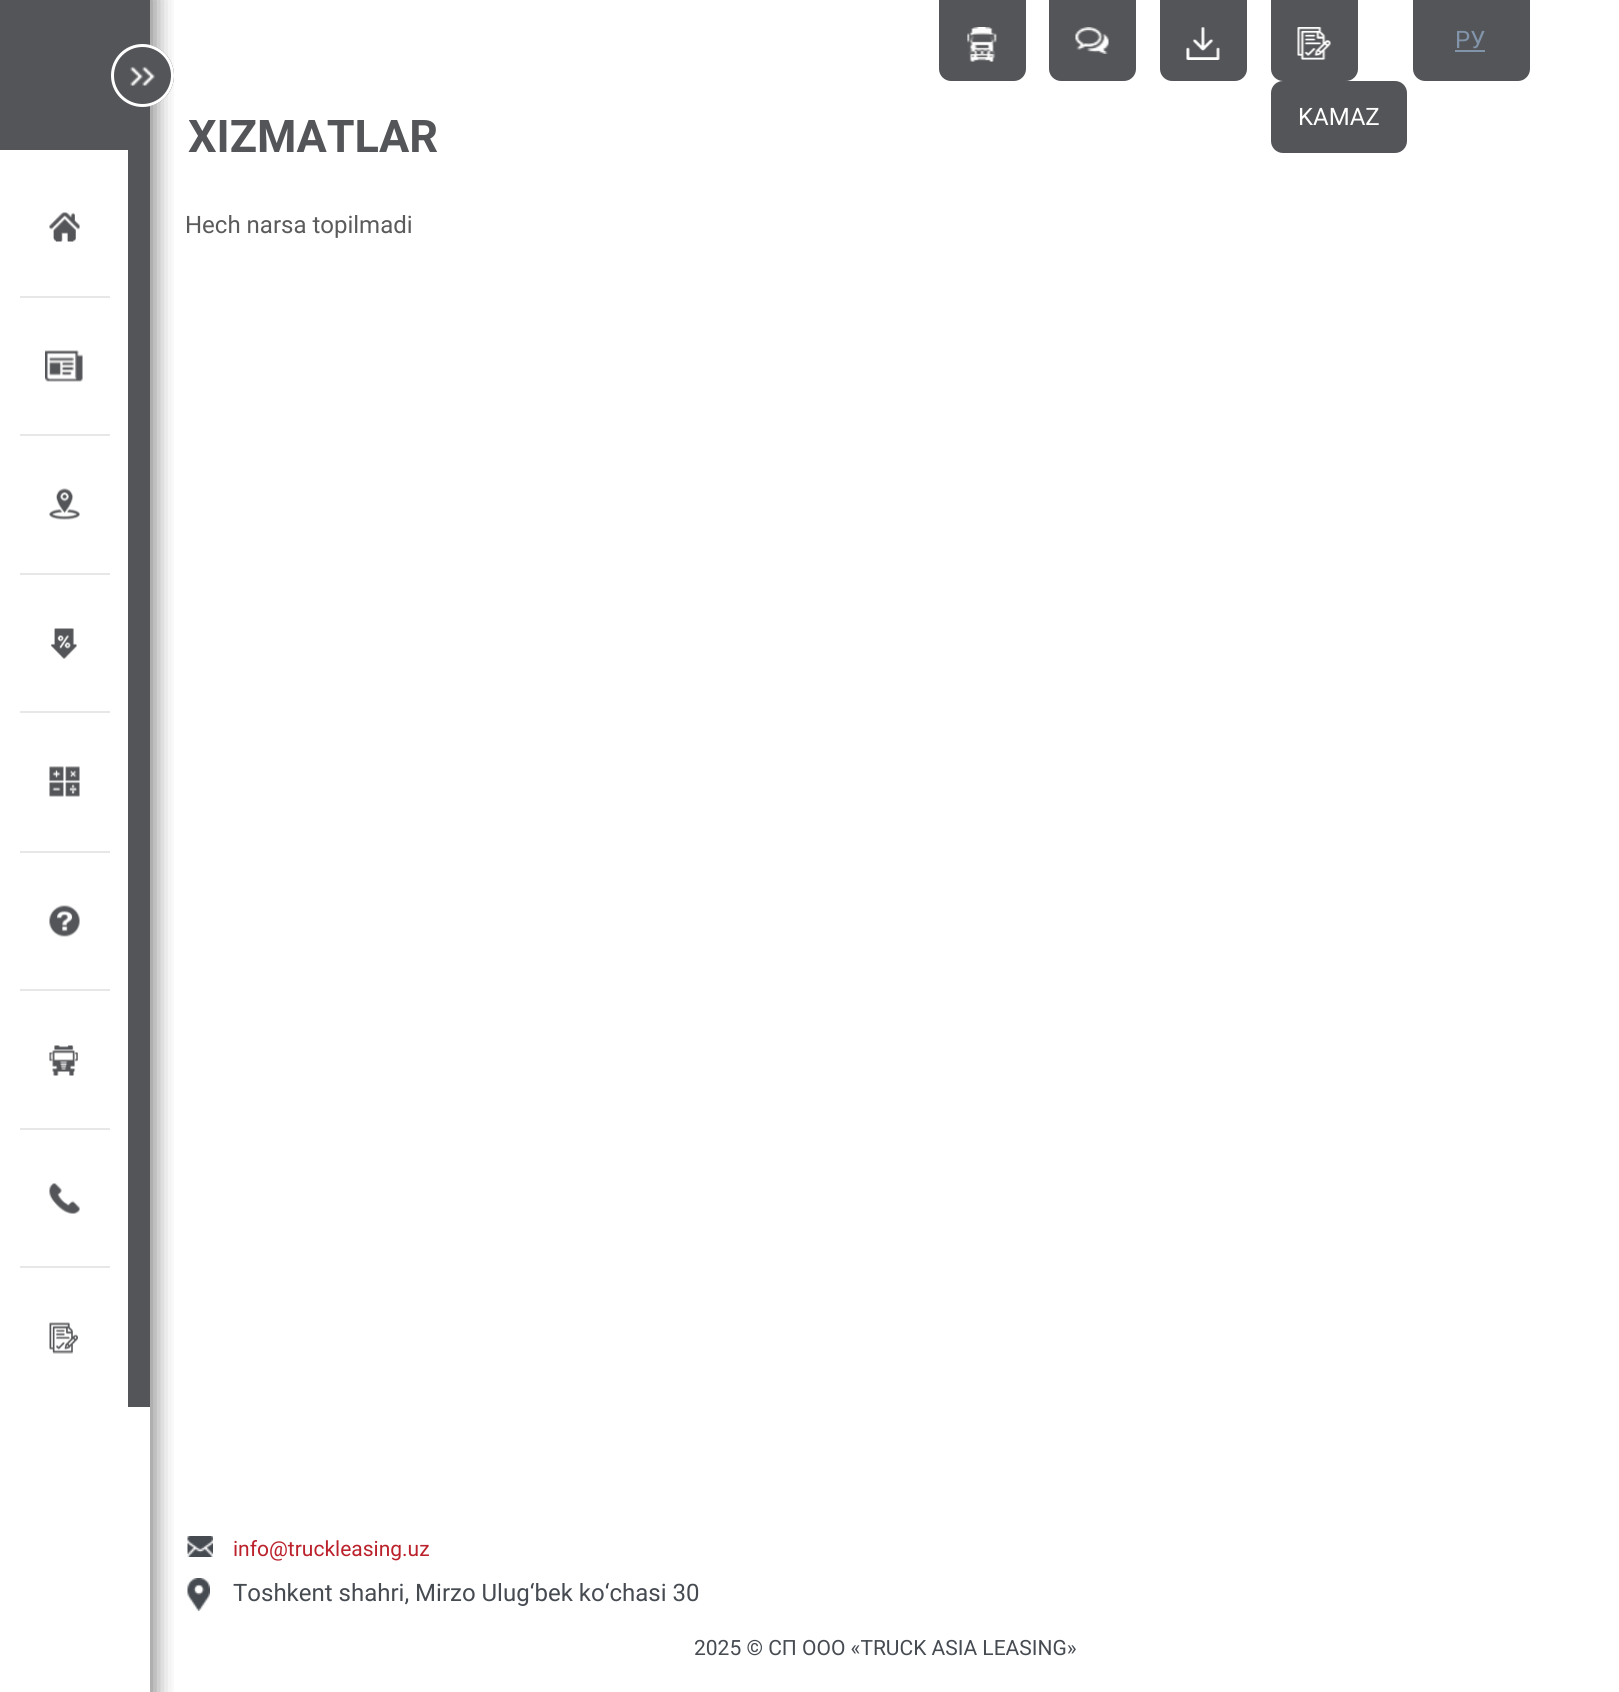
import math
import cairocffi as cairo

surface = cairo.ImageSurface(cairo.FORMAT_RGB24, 1619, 1692)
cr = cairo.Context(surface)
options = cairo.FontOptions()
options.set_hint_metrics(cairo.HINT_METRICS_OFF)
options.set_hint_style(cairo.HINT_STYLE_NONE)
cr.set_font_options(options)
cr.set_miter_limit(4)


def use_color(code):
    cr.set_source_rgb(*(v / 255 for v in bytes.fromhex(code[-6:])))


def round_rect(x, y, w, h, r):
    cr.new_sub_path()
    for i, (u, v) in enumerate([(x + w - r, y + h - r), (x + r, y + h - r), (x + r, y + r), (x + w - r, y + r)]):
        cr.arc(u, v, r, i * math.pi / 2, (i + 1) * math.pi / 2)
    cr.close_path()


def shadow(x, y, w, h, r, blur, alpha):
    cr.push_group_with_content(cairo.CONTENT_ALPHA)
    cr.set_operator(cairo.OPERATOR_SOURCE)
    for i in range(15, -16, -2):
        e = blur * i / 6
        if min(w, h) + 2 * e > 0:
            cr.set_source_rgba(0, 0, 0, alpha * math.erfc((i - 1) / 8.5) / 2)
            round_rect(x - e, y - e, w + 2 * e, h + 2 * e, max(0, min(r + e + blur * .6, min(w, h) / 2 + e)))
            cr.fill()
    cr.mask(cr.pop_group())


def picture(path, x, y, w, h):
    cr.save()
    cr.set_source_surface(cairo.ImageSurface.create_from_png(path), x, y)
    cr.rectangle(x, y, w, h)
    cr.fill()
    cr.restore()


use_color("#ffffff")
cr.paint()
picture("img15.png", 187, 1536, 26, 21)
picture("img16.png", 187, 1578, 23, 33)
cr.save()
cr.rectangle(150, 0, 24, 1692)
cr.clip()
use_color("#000000")
shadow(-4, -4, 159, 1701, 0, 11, 0.5)
cr.restore()
use_color("#545558")
cr.rectangle(0, 0, 150, 150)
cr.fill()
cr.arc(142.5, 75.5, 31.5, 0, 2 * math.pi)
cr.fill()
picture("img1.png", 130, 66, 25, 20)
cr.arc(142.5, 75.5, 30, 0, 2 * math.pi)
use_color("#ffffff")
cr.set_line_width(3)
cr.stroke()
use_color("#545558")
cr.new_path()
cr.move_to(939, 0)
cr.line_to(1026, 0)
cr.line_to(1026, 69)
cr.curve_to(1026, 75.5, 1020.5, 81, 1014, 81)
cr.line_to(951, 81)
cr.curve_to(944.5, 81, 939, 75.5, 939, 69)
cr.close_path()
cr.fill()
picture("img2.png", 967, 27, 30, 35)
cr.new_path()
cr.move_to(1049, 0)
cr.line_to(1136, 0)
cr.line_to(1136, 69)
cr.curve_to(1136, 75.5, 1130.5, 81, 1124, 81)
cr.line_to(1061, 81)
cr.curve_to(1054.5, 81, 1049, 75.5, 1049, 69)
cr.close_path()
cr.fill()
picture("img3.png", 1075, 27, 34, 27)
cr.new_path()
cr.move_to(1160, 0)
cr.line_to(1247, 0)
cr.line_to(1247, 69)
cr.curve_to(1247, 75.5, 1241.5, 81, 1235, 81)
cr.line_to(1172, 81)
cr.curve_to(1165.5, 81, 1160, 75.5, 1160, 69)
cr.close_path()
cr.fill()
picture("img4.png", 1186, 27, 34, 33)
cr.new_path()
cr.move_to(1413, 0)
cr.line_to(1530, 0)
cr.line_to(1530, 69)
cr.curve_to(1530, 75.5, 1524.5, 81, 1518, 81)
cr.line_to(1425, 81)
cr.curve_to(1418.5, 81, 1413, 75.5, 1413, 69)
cr.close_path()
cr.fill()
cr.select_font_face("Roboto")
cr.set_font_size(24)
use_color("#8194aa")
cr.move_to(1455, 48)
cr.show_text("РУ")
cr.rectangle(1455, 50, 30, 2)
cr.fill()
use_color("#545558")
cr.new_path()
cr.move_to(1271, 0)
cr.line_to(1358, 0)
cr.line_to(1358, 69)
cr.curve_to(1358, 75.5, 1352.5, 81, 1346, 81)
cr.line_to(1283, 81)
cr.curve_to(1276.5, 81, 1271, 75.5, 1271, 69)
cr.close_path()
cr.fill()
picture("img5.png", 1297, 27, 34, 33)
round_rect(1271, 81, 136, 72, 12)
cr.fill()
use_color("#ffffff")
cr.move_to(1298, 125)
cr.show_text("KAMAZ")
use_color("#545558")
cr.rectangle(128, 150, 22, 1257)
cr.fill()
picture("img6.png", 49, 212, 31, 30)
use_color("#e7e7e7")
cr.rectangle(20, 296, 90, 2)
cr.fill()
picture("img7.png", 45, 350, 38, 32)
cr.rectangle(20, 434, 90, 2)
cr.fill()
picture("img8.png", 49, 488, 31, 32)
cr.rectangle(20, 573, 90, 2)
cr.fill()
picture("img9.png", 51, 628, 26, 31)
cr.rectangle(20, 711, 90, 2)
cr.fill()
picture("img10.png", 49, 766, 31, 31)
cr.rectangle(20, 851, 90, 2)
cr.fill()
picture("img11.png", 49, 905, 31, 32)
cr.rectangle(20, 989, 90, 2)
cr.fill()
picture("img12.png", 49, 1045, 29, 31)
cr.rectangle(20, 1128, 90, 2)
cr.fill()
picture("img13.png", 49, 1183, 31, 31)
cr.rectangle(20, 1266, 90, 2)
cr.fill()
picture("img14.png", 49, 1322, 29, 32)
cr.select_font_face("Roboto", cairo.FONT_SLANT_NORMAL, cairo.FONT_WEIGHT_BOLD)
cr.set_font_size(45)
use_color("#545558")
cr.move_to(188, 152)
cr.show_text("XIZMATLAR")
cr.select_font_face("Roboto")
cr.set_font_size(24)
use_color("#5c5b5b")
cr.move_to(185, 233)
cr.show_text("Hech narsa topilmadi")
cr.set_font_size(21)
use_color("#bb212b")
cr.move_to(233, 1556)
cr.show_text("info@truckleasing.uz")
cr.set_font_size(24)
use_color("#464b52")
cr.move_to(233, 1601)
cr.show_text("Toshkent shahri, Mirzo Ulug‘bek ko‘chasi 30")
cr.set_font_size(21)
cr.move_to(694, 1655)
cr.show_text("2025 © СП ООО «TRUCK ASIA LEASING»")
surface.write_to_png("result.png")
